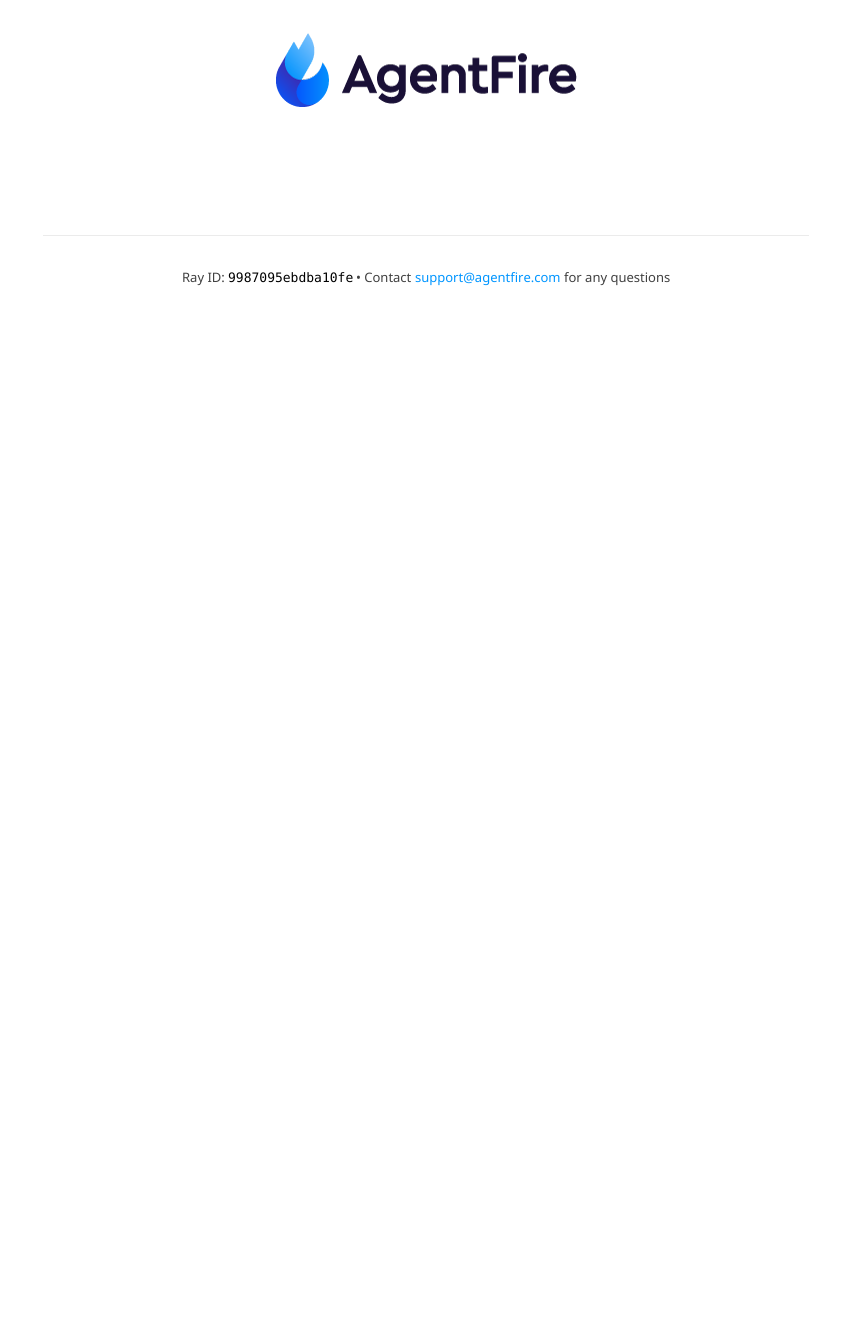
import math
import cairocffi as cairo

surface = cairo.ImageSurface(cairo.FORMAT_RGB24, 852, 1330)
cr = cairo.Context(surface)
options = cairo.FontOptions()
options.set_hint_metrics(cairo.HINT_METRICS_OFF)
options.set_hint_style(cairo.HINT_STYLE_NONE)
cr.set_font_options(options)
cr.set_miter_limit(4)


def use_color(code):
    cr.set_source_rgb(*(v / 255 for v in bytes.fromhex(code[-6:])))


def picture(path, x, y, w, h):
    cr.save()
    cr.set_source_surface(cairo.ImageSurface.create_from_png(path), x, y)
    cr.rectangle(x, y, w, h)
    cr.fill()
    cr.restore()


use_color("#ffffff")
cr.paint()
picture("img1.png", 276, 33, 301, 74)
use_color("#ebebeb")
cr.rectangle(43, 235, 766, 1)
cr.fill()
cr.select_font_face("Noto Sans")
cr.set_font_size(13)
use_color("#404040")
cr.move_to(182, 282)
cr.show_text("Ray ID:")
cr.select_font_face("DejaVu Sans Mono")
use_color("#000000")
cr.move_to(228, 282)
cr.show_text("9987095ebdba10fe")
cr.select_font_face("Noto Sans")
use_color("#404040")
cr.move_to(356, 282)
cr.show_text("• Contact")
use_color("#0095ff")
cr.move_to(415, 282)
cr.show_text("support@agentfire.com")
use_color("#404040")
cr.move_to(564, 282)
cr.show_text("for any questions")
surface.write_to_png("result.png")
